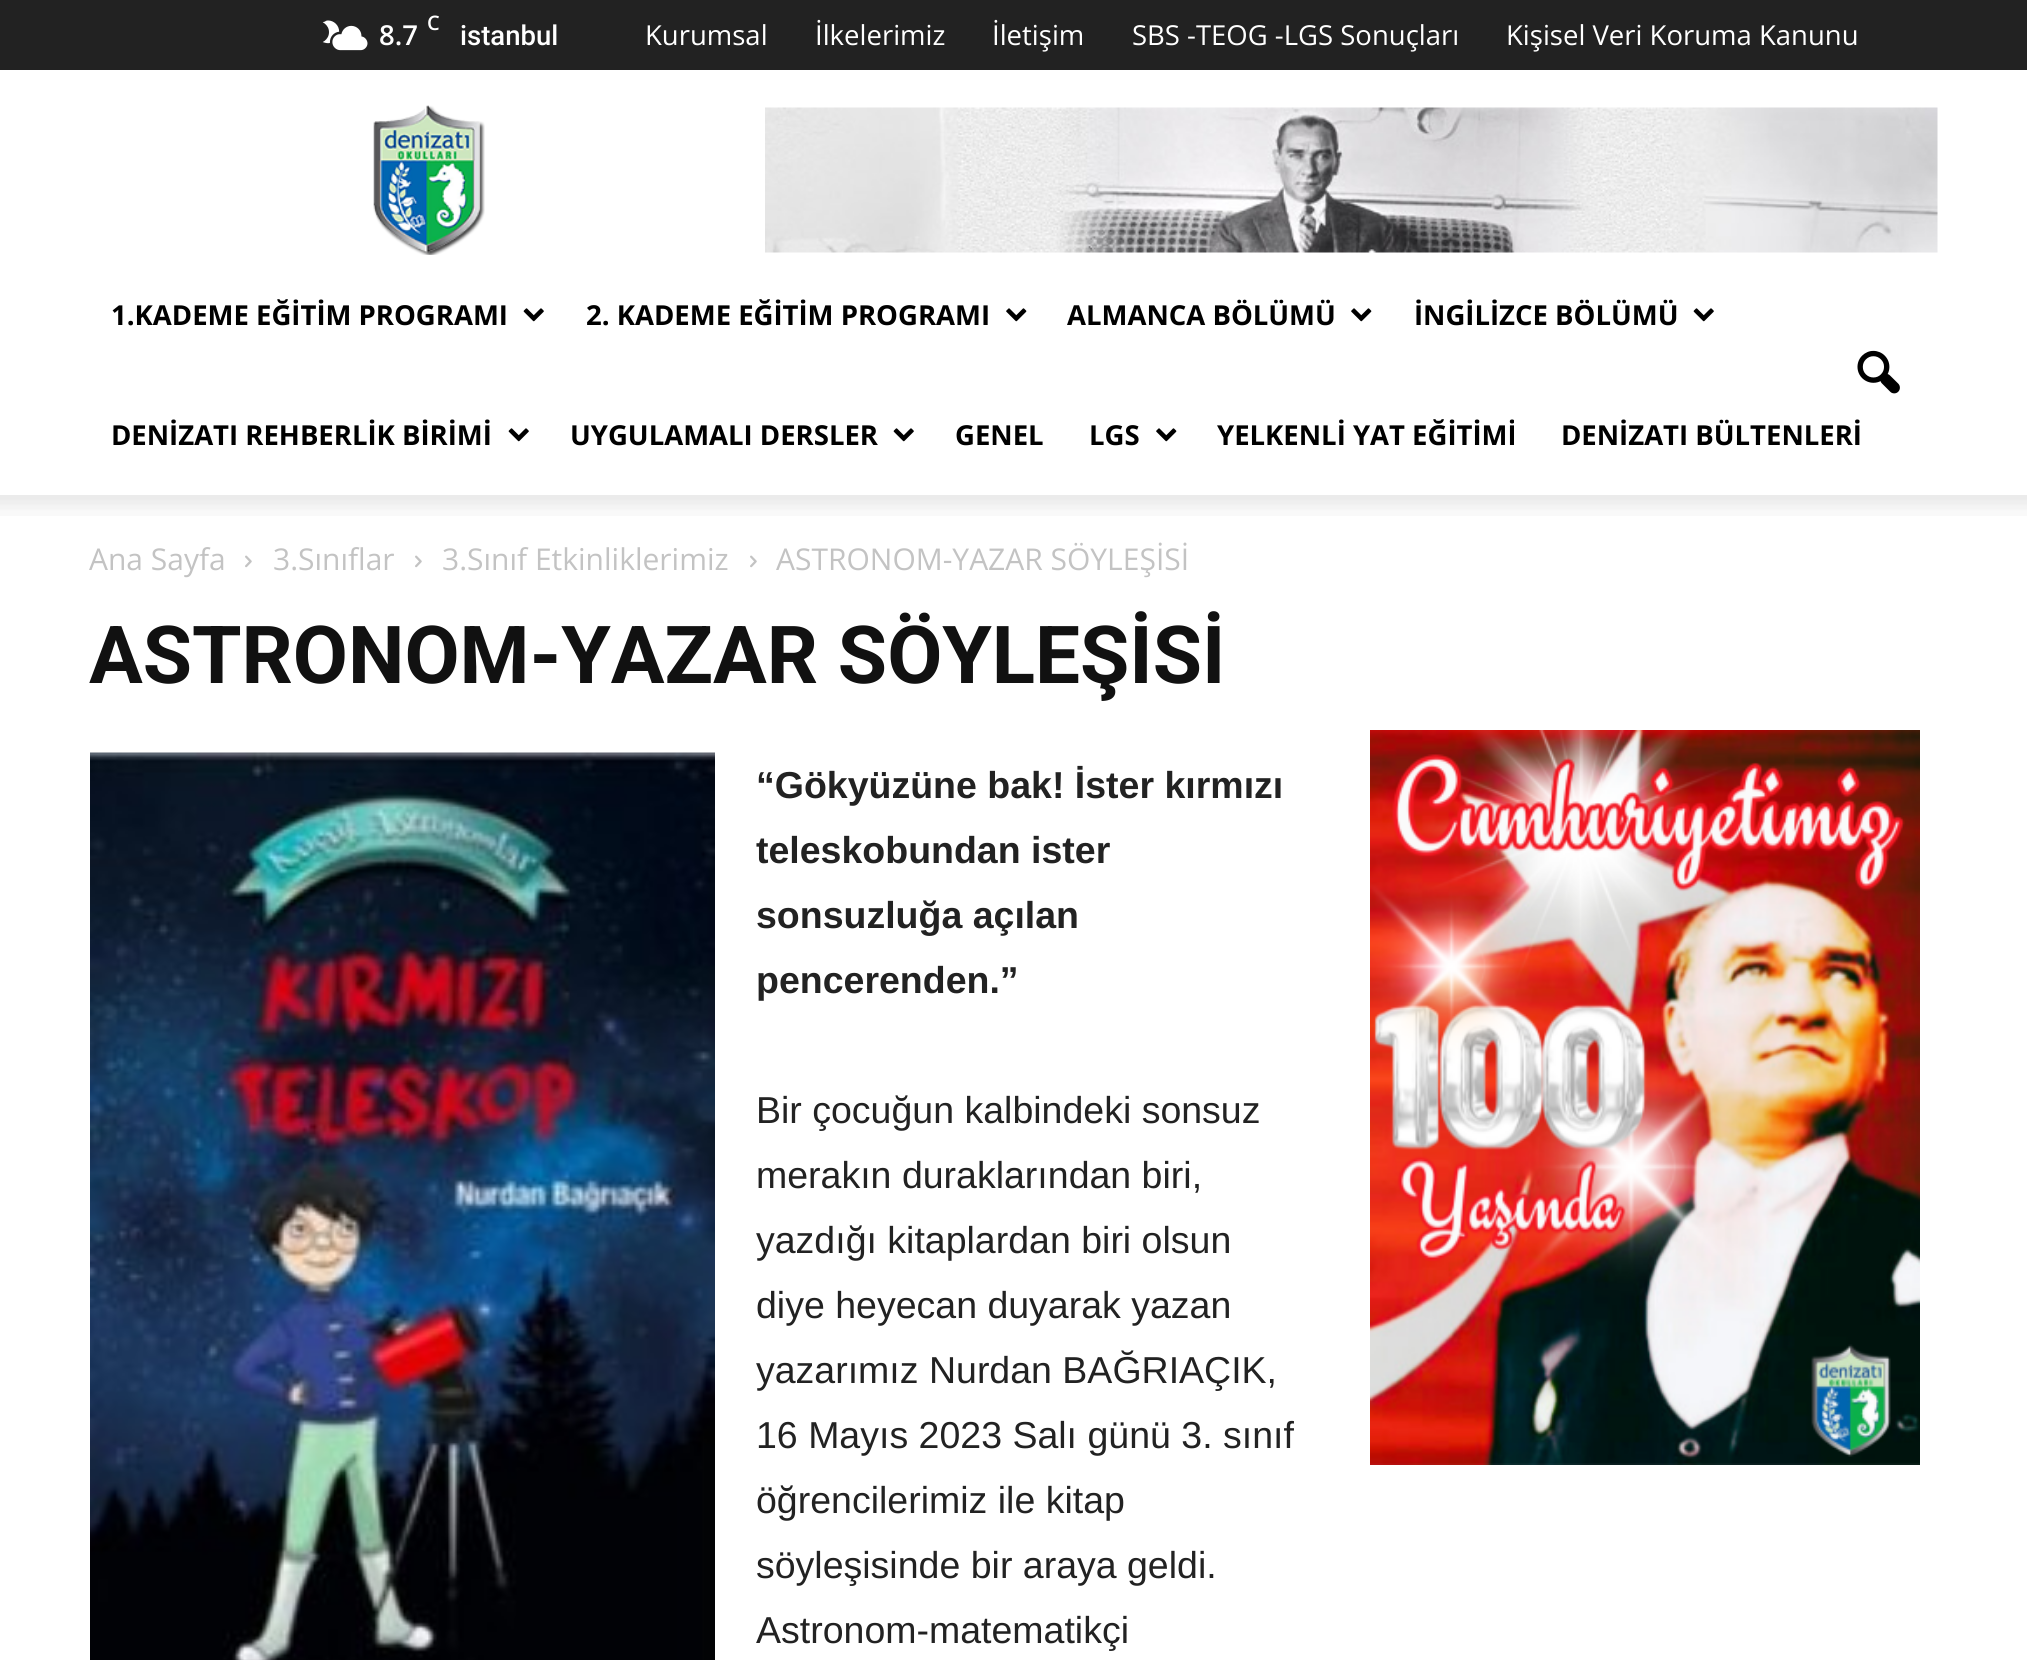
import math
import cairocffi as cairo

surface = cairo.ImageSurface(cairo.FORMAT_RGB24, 2027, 1660)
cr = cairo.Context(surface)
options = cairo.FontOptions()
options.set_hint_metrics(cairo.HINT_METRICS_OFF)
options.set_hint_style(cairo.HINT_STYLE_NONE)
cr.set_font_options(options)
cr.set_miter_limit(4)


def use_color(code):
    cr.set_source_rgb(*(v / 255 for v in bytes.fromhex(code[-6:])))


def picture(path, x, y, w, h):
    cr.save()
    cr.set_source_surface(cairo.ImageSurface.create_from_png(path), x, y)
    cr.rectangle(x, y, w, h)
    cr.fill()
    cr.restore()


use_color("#ffffff")
cr.paint()
use_color("#222222")
cr.rectangle(0, 0, 2027, 70)
cr.fill()
picture("img1.png", 322, 20, 46, 31)
cr.select_font_face("Open Sans SemiBold")
cr.set_font_size(20)
use_color("#ffffff")
cr.move_to(427, 30)
cr.show_text("C")
cr.set_font_size(27.5)
cr.move_to(379, 45)
cr.show_text("8.7")
cr.select_font_face("Roboto Medium")
cr.move_to(460, 45)
cr.show_text("istanbul")
cr.select_font_face("Open Sans")
cr.move_to(645, 45)
cr.show_text("Kurumsal")
cr.move_to(815, 45)
cr.show_text("İlkelerimiz")
cr.move_to(992, 45)
cr.show_text("İletişim")
cr.move_to(1132, 45)
cr.show_text("SBS -TEOG -LGS Sonuçları")
cr.move_to(1506, 45)
cr.show_text("Kişisel Veri Koruma Kanunu")
picture("img2.png", 373, 105, 112, 150)
picture("img3.png", 765, 107, 1173, 146)
cr.select_font_face("Open Sans", cairo.FONT_SLANT_NORMAL, cairo.FONT_WEIGHT_BOLD)
use_color("#000000")
cr.move_to(111, 325)
cr.show_text("1.KADEME EĞİTİM PROGRAMI")
picture("img4.png", 523, 308, 21, 14)
cr.move_to(586, 325)
cr.show_text("2. KADEME EĞİTİM PROGRAMI")
picture("img5.png", 1006, 308, 21, 14)
cr.move_to(1067, 325)
cr.show_text("ALMANCA BÖLÜMÜ")
picture("img5.png", 1351, 308, 21, 14)
cr.move_to(1414, 325)
cr.show_text("İNGİLİZCE BÖLÜMÜ")
picture("img4.png", 1693, 308, 21, 14)
cr.move_to(111, 445)
cr.show_text("DENİZATI REHBERLİK BİRİMİ")
picture("img4.png", 508, 428, 21, 14)
cr.move_to(570, 445)
cr.show_text("UYGULAMALI DERSLER")
picture("img4.png", 893, 428, 21, 14)
cr.move_to(955, 445)
cr.show_text("GENEL")
cr.move_to(1089, 445)
cr.show_text("LGS")
picture("img5.png", 1156, 428, 21, 14)
cr.move_to(1217, 445)
cr.show_text("YELKENLİ YAT EĞİTİMİ")
cr.move_to(1561, 445)
cr.show_text("DENİZATI BÜLTENLERİ")
picture("img6.png", 1857, 350, 43, 44)
picture("img7.png", 0, 495, 2027, 21)
cr.select_font_face("Open Sans")
cr.set_font_size(30)
use_color("#c3c3c3")
cr.move_to(89, 570)
cr.show_text("Ana Sayfa")
picture("img8.png", 245, 555, 7, 13)
cr.move_to(273, 570)
cr.show_text("3.Sınıflar")
picture("img8.png", 415, 555, 7, 13)
cr.move_to(442, 570)
cr.show_text("3.Sınıf Etkinliklerimiz")
picture("img8.png", 750, 555, 7, 13)
cr.move_to(776, 570)
cr.show_text("ASTRONOM-YAZAR SÖYLEŞİSİ")
cr.select_font_face("Roboto", cairo.FONT_SLANT_NORMAL, cairo.FONT_WEIGHT_BOLD)
cr.set_font_size(80)
use_color("#111111")
cr.move_to(89, 683)
cr.show_text("ASTRONOM-YAZAR SÖYLEŞİSİ")
picture("img9.png", 90, 752, 625, 908)
cr.select_font_face("Liberation Sans", cairo.FONT_SLANT_NORMAL, cairo.FONT_WEIGHT_BOLD)
cr.set_font_size(37.5)
use_color("#222222")
cr.move_to(756, 798)
cr.show_text("“Gökyüzüne bak! İster kırmızı")
cr.move_to(756, 863)
cr.show_text("teleskobundan ister")
cr.move_to(756, 928)
cr.show_text("sonsuzluğa açılan")
cr.move_to(756, 993)
cr.show_text("pencerenden.”")
cr.select_font_face("Liberation Sans")
cr.move_to(756, 1123)
cr.show_text("Bir çocuğun kalbindeki sonsuz")
cr.move_to(756, 1188)
cr.show_text("merakın duraklarından biri,")
cr.move_to(756, 1253)
cr.show_text("yazdığı kitaplardan biri olsun")
cr.move_to(756, 1318)
cr.show_text("diye heyecan duyarak yazan")
cr.move_to(756, 1383)
cr.show_text("yazarımız Nurdan BAĞRIAÇIK,")
cr.move_to(756, 1448)
cr.show_text("16 Mayıs 2023 Salı günü 3. sınıf")
cr.move_to(756, 1513)
cr.show_text("öğrencilerimiz ile kitap")
cr.move_to(756, 1578)
cr.show_text("söyleşisinde bir araya geldi.")
cr.move_to(756, 1643)
cr.show_text("Astronom-matematikçi")
picture("img10.png", 1370, 730, 550, 735)
surface.write_to_png("result.png")
